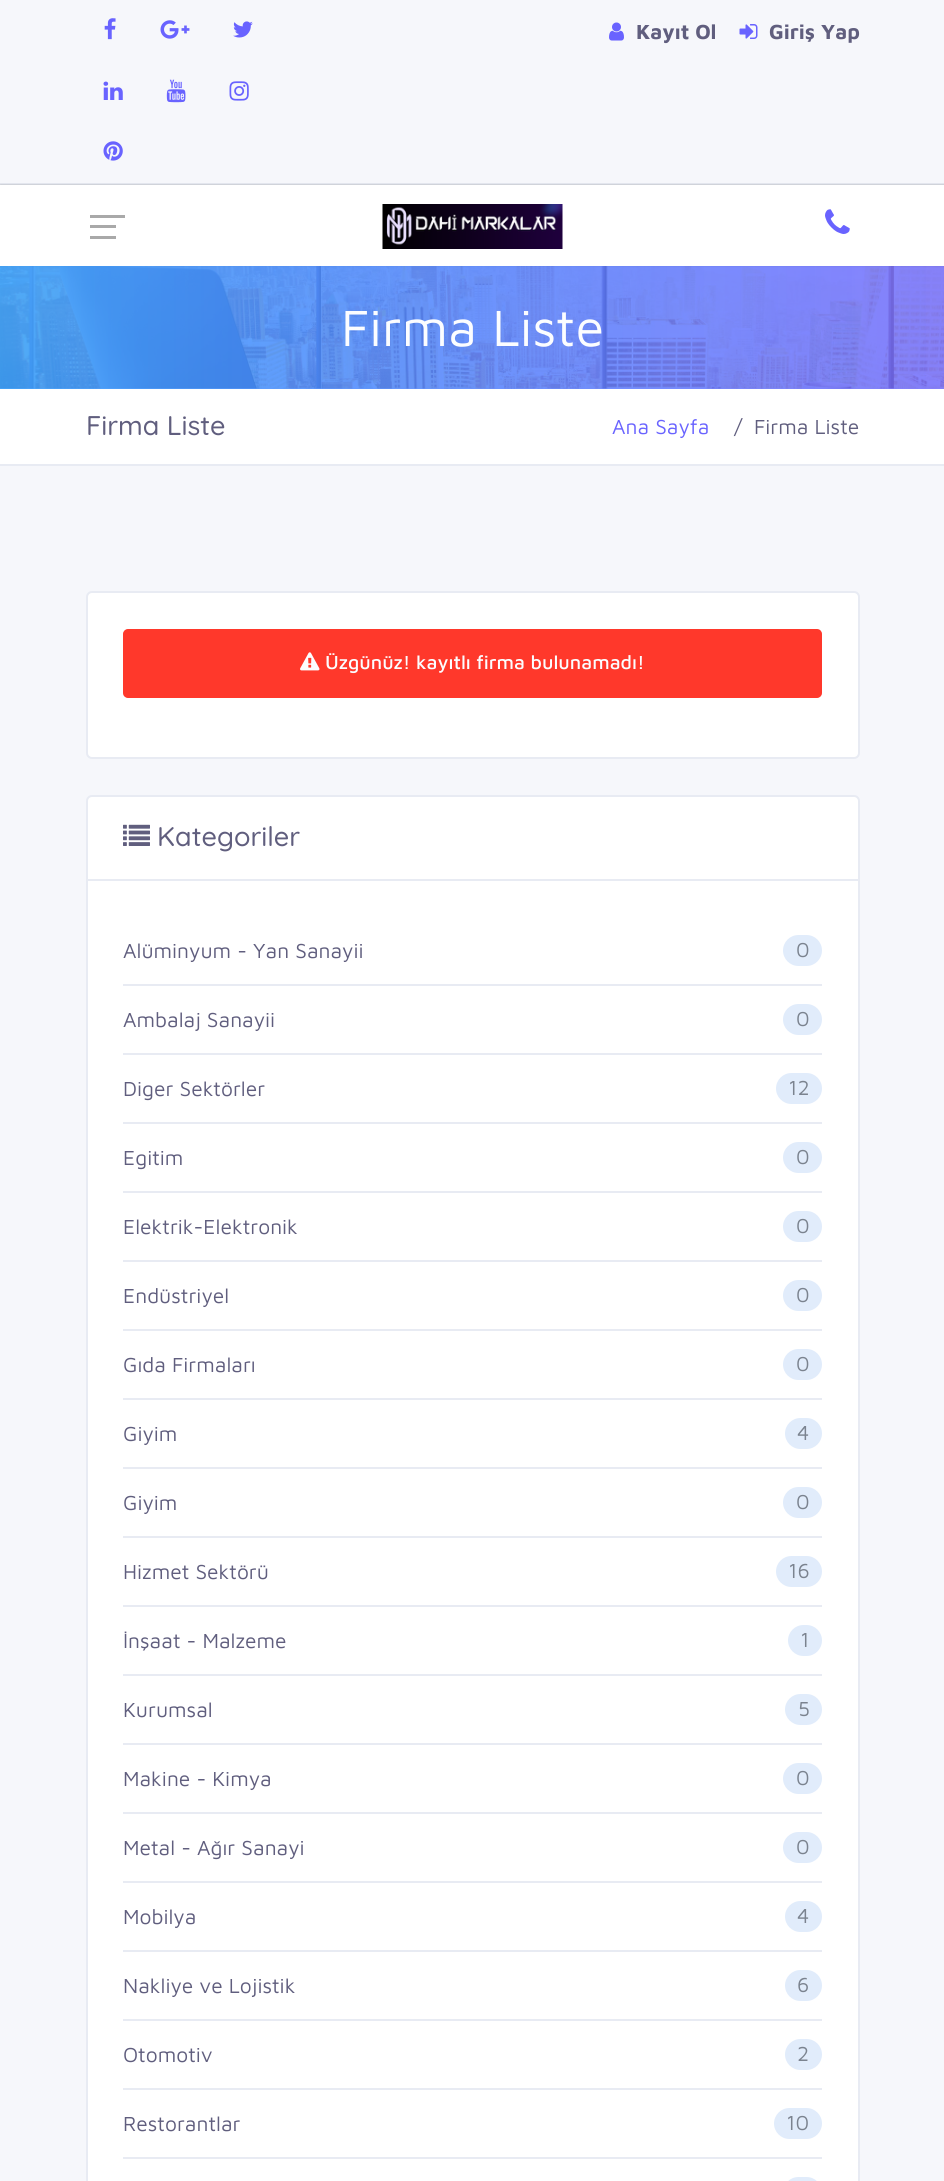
import math
import cairocffi as cairo

surface = cairo.ImageSurface(cairo.FORMAT_RGB24, 944, 2181)
cr = cairo.Context(surface)
options = cairo.FontOptions()
options.set_hint_metrics(cairo.HINT_METRICS_OFF)
options.set_hint_style(cairo.HINT_STYLE_NONE)
cr.set_font_options(options)
cr.set_miter_limit(4)


def use_color(code):
    cr.set_source_rgb(*(v / 255 for v in bytes.fromhex(code[-6:])))


def round_rect(x, y, w, h, r):
    cr.new_sub_path()
    for i, (u, v) in enumerate([(x + w - r, y + h - r), (x + r, y + h - r), (x + r, y + r), (x + w - r, y + r)]):
        cr.arc(u, v, r, i * math.pi / 2, (i + 1) * math.pi / 2)
    cr.close_path()


def shadow(x, y, w, h, r, blur, alpha):
    cr.push_group_with_content(cairo.CONTENT_ALPHA)
    cr.set_operator(cairo.OPERATOR_SOURCE)
    for i in range(15, -16, -2):
        e = blur * i / 6
        if min(w, h) + 2 * e > 0:
            cr.set_source_rgba(0, 0, 0, alpha * math.erfc((i - 1) / 8.5) / 2)
            round_rect(x - e, y - e, w + 2 * e, h + 2 * e, max(0, min(r + e + blur * .6, min(w, h) / 2 + e)))
            cr.fill()
    cr.mask(cr.pop_group())


def picture(path, x, y, w, h):
    cr.save()
    cr.set_source_surface(cairo.ImageSurface.create_from_png(path), x, y)
    cr.rectangle(x, y, w, h)
    cr.fill()
    cr.restore()


use_color("#f6f7fb")
cr.paint()
use_color("#e8ebf3")
cr.rectangle(0, 183, 944, 2)
cr.fill()
picture("img1.png", 104, 18, 12, 22)
picture("img2.png", 160, 20, 30, 19)
picture("img3.png", 233, 21, 20, 17)
picture("img4.png", 103, 81, 20, 19)
picture("img5.png", 166, 79, 20, 24)
picture("img6.png", 229, 81, 20, 20)
picture("img7.png", 103, 141, 20, 20)
picture("img8.png", 609, 22, 15, 19)
cr.select_font_face("Maven Pro", cairo.FONT_SLANT_NORMAL, cairo.FONT_WEIGHT_BOLD)
cr.set_font_size(21)
use_color("#605e7e")
cr.move_to(636, 39)
cr.show_text("Kayıt Ol")
picture("img9.png", 739, 24, 19, 15)
cr.move_to(769, 39)
cr.show_text("Giriş Yap")
picture("img12.png", 0, 266, 944, 123)
use_color("#000000")
shadow(0, 185, 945, 81, 0, 1, 0.3)
use_color("#ffffff")
cr.rectangle(0, 185, 944, 81)
cr.fill()
use_color("#a9a9a9")
cr.rectangle(90, 225, 26, 3)
cr.fill()
cr.rectangle(90, 215, 35, 3)
cr.fill()
cr.rectangle(90, 236, 26, 3)
cr.fill()
picture("img10.png", 382, 204, 181, 45)
picture("img11.png", 825, 209, 25, 25)
gradient = cairo.LinearGradient(0, 327, 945, 327)
gradient.add_color_stop_rgba(0, 0.231, 0.635, 1, 0.9)
gradient.add_color_stop_rgba(1, 0.412, 0.388, 1, 0.8)
cr.set_source(gradient)
cr.rectangle(0, 266, 944, 123)
cr.fill()
cr.select_font_face("Maven Pro")
cr.set_font_size(52.5)
use_color("#fcfdff")
cr.move_to(341, 346)
cr.show_text("Firma Liste")
use_color("#ffffff")
cr.rectangle(0, 389, 944, 75)
cr.fill()
use_color("#e8ebf3")
cr.rectangle(0, 464, 944, 2)
cr.fill()
cr.select_font_face("Quicksand Medium")
cr.set_font_size(27)
use_color("#605e7e")
cr.move_to(86, 435)
cr.show_text("Firma Liste")
cr.select_font_face("Maven Pro")
cr.set_font_size(21)
use_color("#6963ff")
cr.move_to(612, 434)
cr.show_text("Ana Sayfa")
use_color("#605e7e")
cr.move_to(734, 434)
cr.show_text("/")
cr.move_to(754, 434)
cr.show_text("Firma Liste")
use_color("#ffffff")
round_rect(87, 592, 772, 166, 5)
cr.fill_preserve()
use_color("#e8ebf3")
cr.stroke()
use_color("#ff382b")
round_rect(124, 630, 697, 67, 4)
cr.fill_preserve()
cr.stroke()
picture("img13.png", 300, 652, 20, 19)
cr.select_font_face("Maven Pro Medium")
cr.set_font_size(19.5)
use_color("#fcfdff")
cr.move_to(325, 669)
cr.show_text("Üzgünüz! kayıtlı firma bulunamadı!")
use_color("#ffffff")
round_rect(87, 796, 772, 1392, 5)
cr.fill_preserve()
use_color("#e8ebf3")
cr.stroke()
cr.rectangle(87, 879, 771, 2)
cr.fill()
picture("img14.png", 123, 824, 27, 22)
cr.select_font_face("Quicksand Medium")
cr.set_font_size(27)
use_color("#605e7e")
cr.move_to(157, 846)
cr.show_text("Kategoriler")
use_color("#e8ebf3")
cr.rectangle(123, 984, 699, 2)
cr.fill()
cr.select_font_face("Maven Pro")
cr.set_font_size(21)
use_color("#605e7e")
cr.move_to(123, 958)
cr.show_text("Alüminyum - Yan Sanayii")
use_color("#e1ecfb")
round_rect(783, 935, 39, 31, 15.5)
cr.fill()
use_color("#7b838f")
cr.move_to(796, 957)
cr.show_text("0")
use_color("#e8ebf3")
cr.rectangle(123, 1053, 699, 2)
cr.fill()
use_color("#605e7e")
cr.move_to(123, 1027)
cr.show_text("Ambalaj Sanayii")
use_color("#e1ecfb")
round_rect(783, 1004, 39, 31, 15.5)
cr.fill()
use_color("#7b838f")
cr.move_to(796, 1026)
cr.show_text("0")
use_color("#e8ebf3")
cr.rectangle(123, 1122, 699, 2)
cr.fill()
use_color("#605e7e")
cr.move_to(123, 1096)
cr.show_text("Diger Sektörler")
use_color("#e1ecfb")
round_rect(776, 1073, 46, 31, 15.5)
cr.fill()
use_color("#7b838f")
cr.move_to(788, 1095)
cr.show_text("12")
use_color("#e8ebf3")
cr.rectangle(123, 1191, 699, 2)
cr.fill()
use_color("#605e7e")
cr.move_to(123, 1165)
cr.show_text("Egitim")
use_color("#e1ecfb")
round_rect(783, 1142, 39, 31, 15.5)
cr.fill()
use_color("#7b838f")
cr.move_to(796, 1164)
cr.show_text("0")
use_color("#e8ebf3")
cr.rectangle(123, 1260, 699, 2)
cr.fill()
use_color("#605e7e")
cr.move_to(123, 1234)
cr.show_text("Elektrik-Elektronik")
use_color("#e1ecfb")
round_rect(783, 1211, 39, 31, 15.5)
cr.fill()
use_color("#7b838f")
cr.move_to(796, 1233)
cr.show_text("0")
use_color("#e8ebf3")
cr.rectangle(123, 1329, 699, 2)
cr.fill()
use_color("#605e7e")
cr.move_to(123, 1303)
cr.show_text("Endüstriyel")
use_color("#e1ecfb")
round_rect(783, 1280, 39, 31, 15.5)
cr.fill()
use_color("#7b838f")
cr.move_to(796, 1302)
cr.show_text("0")
use_color("#e8ebf3")
cr.rectangle(123, 1398, 699, 2)
cr.fill()
use_color("#605e7e")
cr.move_to(123, 1372)
cr.show_text("Gıda Firmaları")
use_color("#e1ecfb")
round_rect(783, 1349, 39, 31, 15.5)
cr.fill()
use_color("#7b838f")
cr.move_to(796, 1371)
cr.show_text("0")
use_color("#e8ebf3")
cr.rectangle(123, 1467, 699, 2)
cr.fill()
use_color("#605e7e")
cr.move_to(123, 1441)
cr.show_text("Giyim")
use_color("#e1ecfb")
round_rect(785, 1418, 37, 31, 15.5)
cr.fill()
use_color("#7b838f")
cr.move_to(797, 1440)
cr.show_text("4")
use_color("#e8ebf3")
cr.rectangle(123, 1536, 699, 2)
cr.fill()
use_color("#605e7e")
cr.move_to(123, 1510)
cr.show_text("Giyim")
use_color("#e1ecfb")
round_rect(783, 1487, 39, 31, 15.5)
cr.fill()
use_color("#7b838f")
cr.move_to(796, 1509)
cr.show_text("0")
use_color("#e8ebf3")
cr.rectangle(123, 1605, 699, 2)
cr.fill()
use_color("#605e7e")
cr.move_to(123, 1579)
cr.show_text("Hizmet Sektörü")
use_color("#e1ecfb")
round_rect(776, 1556, 46, 31, 15.5)
cr.fill()
use_color("#7b838f")
cr.move_to(788, 1578)
cr.show_text("16")
use_color("#e8ebf3")
cr.rectangle(123, 1674, 699, 2)
cr.fill()
use_color("#605e7e")
cr.move_to(123, 1648)
cr.show_text("İnşaat - Malzeme")
use_color("#e1ecfb")
round_rect(788, 1625, 34, 31, 15.5)
cr.fill()
use_color("#7b838f")
cr.move_to(800, 1647)
cr.show_text("1")
use_color("#e8ebf3")
cr.rectangle(123, 1743, 699, 2)
cr.fill()
use_color("#605e7e")
cr.move_to(123, 1717)
cr.show_text("Kurumsal")
use_color("#e1ecfb")
round_rect(785, 1694, 37, 31, 15.5)
cr.fill()
use_color("#7b838f")
cr.move_to(798, 1716)
cr.show_text("5")
use_color("#e8ebf3")
cr.rectangle(123, 1812, 699, 2)
cr.fill()
use_color("#605e7e")
cr.move_to(123, 1786)
cr.show_text("Makine - Kimya")
use_color("#e1ecfb")
round_rect(783, 1763, 39, 31, 15.5)
cr.fill()
use_color("#7b838f")
cr.move_to(796, 1785)
cr.show_text("0")
use_color("#e8ebf3")
cr.rectangle(123, 1881, 699, 2)
cr.fill()
use_color("#605e7e")
cr.move_to(123, 1855)
cr.show_text("Metal - Ağır Sanayi")
use_color("#e1ecfb")
round_rect(783, 1832, 39, 31, 15.5)
cr.fill()
use_color("#7b838f")
cr.move_to(796, 1854)
cr.show_text("0")
use_color("#e8ebf3")
cr.rectangle(123, 1950, 699, 2)
cr.fill()
use_color("#605e7e")
cr.move_to(123, 1924)
cr.show_text("Mobilya")
use_color("#e1ecfb")
round_rect(785, 1901, 37, 31, 15.5)
cr.fill()
use_color("#7b838f")
cr.move_to(797, 1923)
cr.show_text("4")
use_color("#e8ebf3")
cr.rectangle(123, 2019, 699, 2)
cr.fill()
use_color("#605e7e")
cr.move_to(123, 1993)
cr.show_text("Nakliye ve Lojistik")
use_color("#e1ecfb")
round_rect(785, 1970, 37, 31, 15.5)
cr.fill()
use_color("#7b838f")
cr.move_to(797, 1992)
cr.show_text("6")
use_color("#e8ebf3")
cr.rectangle(123, 2088, 699, 2)
cr.fill()
use_color("#605e7e")
cr.move_to(123, 2062)
cr.show_text("Otomotiv")
use_color("#e1ecfb")
round_rect(785, 2039, 37, 31, 15.5)
cr.fill()
use_color("#7b838f")
cr.move_to(797, 2061)
cr.show_text("2")
use_color("#e8ebf3")
cr.rectangle(123, 2157, 699, 2)
cr.fill()
use_color("#605e7e")
cr.move_to(123, 2131)
cr.show_text("Restorantlar")
use_color("#e1ecfb")
round_rect(774, 2108, 48, 31, 15.5)
cr.fill()
use_color("#7b838f")
cr.move_to(786, 2130)
cr.show_text("10")
use_color("#e1ecfb")
round_rect(783, 2177, 39, 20, 15.5)
cr.fill()
surface.write_to_png("result.png")
